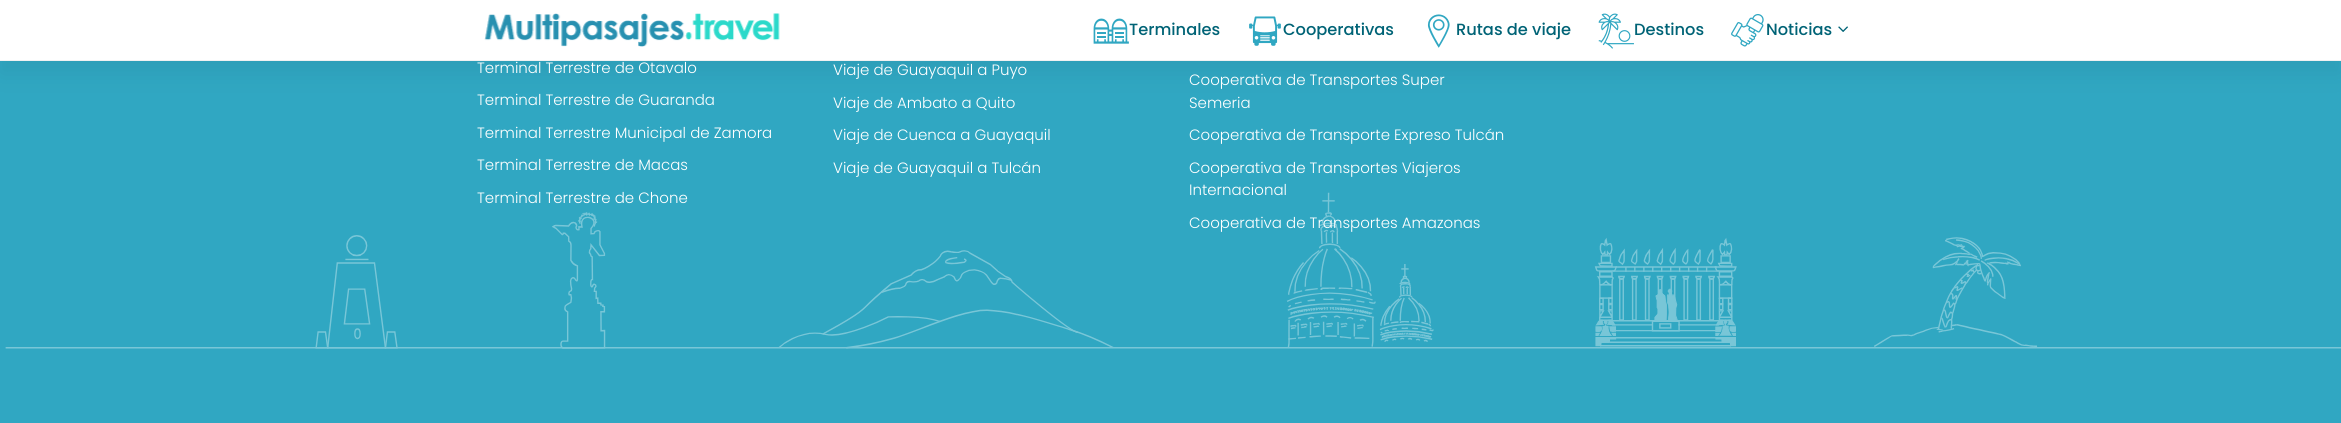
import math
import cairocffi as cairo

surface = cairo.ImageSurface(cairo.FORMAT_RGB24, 2341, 423)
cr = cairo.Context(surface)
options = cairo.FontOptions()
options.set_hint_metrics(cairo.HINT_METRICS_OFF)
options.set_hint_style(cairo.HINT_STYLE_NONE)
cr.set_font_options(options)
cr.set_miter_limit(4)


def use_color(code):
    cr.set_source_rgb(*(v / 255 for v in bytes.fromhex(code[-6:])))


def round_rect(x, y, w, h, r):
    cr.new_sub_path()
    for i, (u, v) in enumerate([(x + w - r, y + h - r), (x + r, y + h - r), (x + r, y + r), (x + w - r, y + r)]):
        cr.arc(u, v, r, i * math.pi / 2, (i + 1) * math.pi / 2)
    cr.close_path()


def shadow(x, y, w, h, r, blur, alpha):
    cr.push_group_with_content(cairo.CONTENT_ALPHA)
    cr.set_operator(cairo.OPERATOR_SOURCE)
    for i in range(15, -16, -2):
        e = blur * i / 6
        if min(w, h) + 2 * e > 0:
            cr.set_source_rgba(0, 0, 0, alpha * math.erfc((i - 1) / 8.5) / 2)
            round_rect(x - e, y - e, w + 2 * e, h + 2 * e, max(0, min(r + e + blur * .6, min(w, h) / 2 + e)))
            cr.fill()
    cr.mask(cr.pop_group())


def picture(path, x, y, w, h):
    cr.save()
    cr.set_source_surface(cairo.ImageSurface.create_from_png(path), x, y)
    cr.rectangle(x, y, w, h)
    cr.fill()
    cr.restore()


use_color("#30a7c2")
cr.paint()
use_color("#000000")
shadow(0, 13, 2341, 61, 0, 12.5, 0.06)
use_color("#ffffff")
cr.rectangle(0, 0, 2341, 60)
cr.fill()
use_color("#f1f1f1")
cr.rectangle(0, 60, 2341, 1)
cr.fill()
picture("img1.png", 484, 13, 296, 34)
picture("img2.png", 1093, 18, 36, 26)
cr.select_font_face("Poppins Medium")
cr.set_font_size(16.25)
use_color("#006376")
cr.move_to(1129, 35)
cr.show_text("Terminales")
picture("img3.png", 1249, 16, 32, 30)
cr.move_to(1283, 35)
cr.show_text("Cooperativas")
picture("img4.png", 1427, 14, 23, 34)
cr.move_to(1456, 35)
cr.show_text("Rutas de viaje")
picture("img5.png", 1598, 13, 36, 36)
cr.move_to(1634, 35)
cr.show_text("Destinos")
picture("img6.png", 1731, 14, 33, 33)
cr.move_to(1766, 35)
cr.show_text("Noticias")
picture("img7.png", 1838, 26, 10, 6)
picture("img8.png", 5, 192, 2336, 157)
cr.select_font_face("Poppins Light")
cr.set_font_size(15)
use_color("#ffffff")
cr.move_to(477, 73)
cr.show_text("Terminal Terrestre de Otavalo")
cr.move_to(477, 105)
cr.show_text("Terminal Terrestre de Guaranda")
cr.move_to(477, 138)
cr.show_text("Terminal Terrestre Municipal de Zamora")
cr.move_to(477, 170)
cr.show_text("Terminal Terrestre de Macas")
cr.move_to(477, 203)
cr.show_text("Terminal Terrestre de Chone")
cr.move_to(833, 75)
cr.show_text("Viaje de Guayaquil a Puyo")
cr.move_to(833, 108)
cr.show_text("Viaje de Ambato a Quito")
cr.move_to(833, 140)
cr.show_text("Viaje de Cuenca a Guayaquil")
cr.move_to(833, 173)
cr.show_text("Viaje de Guayaquil a Tulcán")
cr.move_to(1189, 85)
cr.show_text("Cooperativa de Transportes Super")
cr.move_to(1189, 108)
cr.show_text("Semeria")
cr.move_to(1189, 140)
cr.show_text("Cooperativa de Transporte Expreso Tulcán")
cr.move_to(1189, 173)
cr.show_text("Cooperativa de Transportes Viajeros")
cr.move_to(1189, 195)
cr.show_text("Internacional")
cr.move_to(1189, 228)
cr.show_text("Cooperativa de Transportes Amazonas")
surface.write_to_png("result.png")
